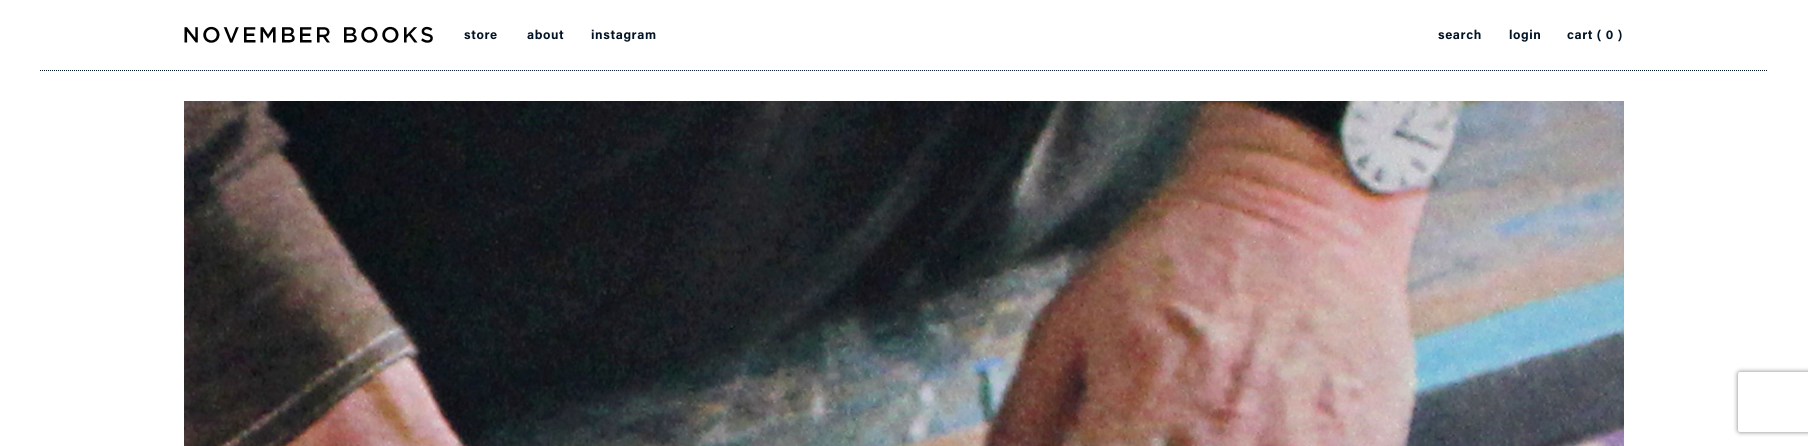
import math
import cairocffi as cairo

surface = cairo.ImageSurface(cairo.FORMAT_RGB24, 1808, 446)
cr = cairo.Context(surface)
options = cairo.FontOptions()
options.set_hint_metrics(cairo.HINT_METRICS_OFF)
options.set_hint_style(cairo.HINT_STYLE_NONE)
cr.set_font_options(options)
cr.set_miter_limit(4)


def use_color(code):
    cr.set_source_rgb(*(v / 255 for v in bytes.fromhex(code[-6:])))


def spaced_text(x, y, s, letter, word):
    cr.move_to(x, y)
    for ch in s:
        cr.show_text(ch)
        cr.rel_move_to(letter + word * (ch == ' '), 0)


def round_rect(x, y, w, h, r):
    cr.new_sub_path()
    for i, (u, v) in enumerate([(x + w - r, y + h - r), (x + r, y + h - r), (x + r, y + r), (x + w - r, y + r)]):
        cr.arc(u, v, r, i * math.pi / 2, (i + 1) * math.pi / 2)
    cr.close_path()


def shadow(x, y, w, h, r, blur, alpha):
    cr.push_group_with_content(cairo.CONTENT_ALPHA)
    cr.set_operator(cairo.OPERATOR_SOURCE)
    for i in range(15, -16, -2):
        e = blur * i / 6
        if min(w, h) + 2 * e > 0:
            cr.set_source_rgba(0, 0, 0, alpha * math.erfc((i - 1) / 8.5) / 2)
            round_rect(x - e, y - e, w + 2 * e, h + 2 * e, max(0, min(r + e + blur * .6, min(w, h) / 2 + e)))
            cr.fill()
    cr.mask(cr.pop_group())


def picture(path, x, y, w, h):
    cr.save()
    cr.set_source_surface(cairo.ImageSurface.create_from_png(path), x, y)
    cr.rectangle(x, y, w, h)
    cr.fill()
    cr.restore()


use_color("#ffffff")
cr.paint()
cr.new_path()
cr.move_to(40, 70.5)
cr.line_to(1768, 70.5)
use_color("#031424")
cr.set_line_width(1)
cr.set_dash([1, 1])
cr.stroke()
picture("img1.png", 184, 26, 249, 17)
cr.select_font_face("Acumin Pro", cairo.FONT_SLANT_NORMAL, cairo.FONT_WEIGHT_BOLD)
cr.set_font_size(12.75)
spaced_text(464, 39, "store", 0.6, 0)
spaced_text(527, 39, "about", 0.6, 0)
spaced_text(591, 39, "instagram", 0.6, 0)
spaced_text(1438, 39, "search", 0.6, 0)
spaced_text(1509, 39, "login", 0.6, 0)
spaced_text(1567, 39, "cart ( 0 )", 0.6, 0)
cr.set_source_rgba(1, 1, 1, 0.1)
cr.rectangle(184, 70, 1440, 1)
cr.fill()
cr.set_source_rgba(0.012, 0.078, 0.141, 0.1)
cr.rectangle(184, 70, 1440, 1)
cr.fill()
picture("img2.png", 184, 101, 1440, 345)
use_color("#808080")
shadow(1738, 372, 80, 60, 2, 2.5, 1)
use_color("#ffffff")
round_rect(1738, 372, 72, 60, 2)
cr.fill()
surface.write_to_png("result.png")
